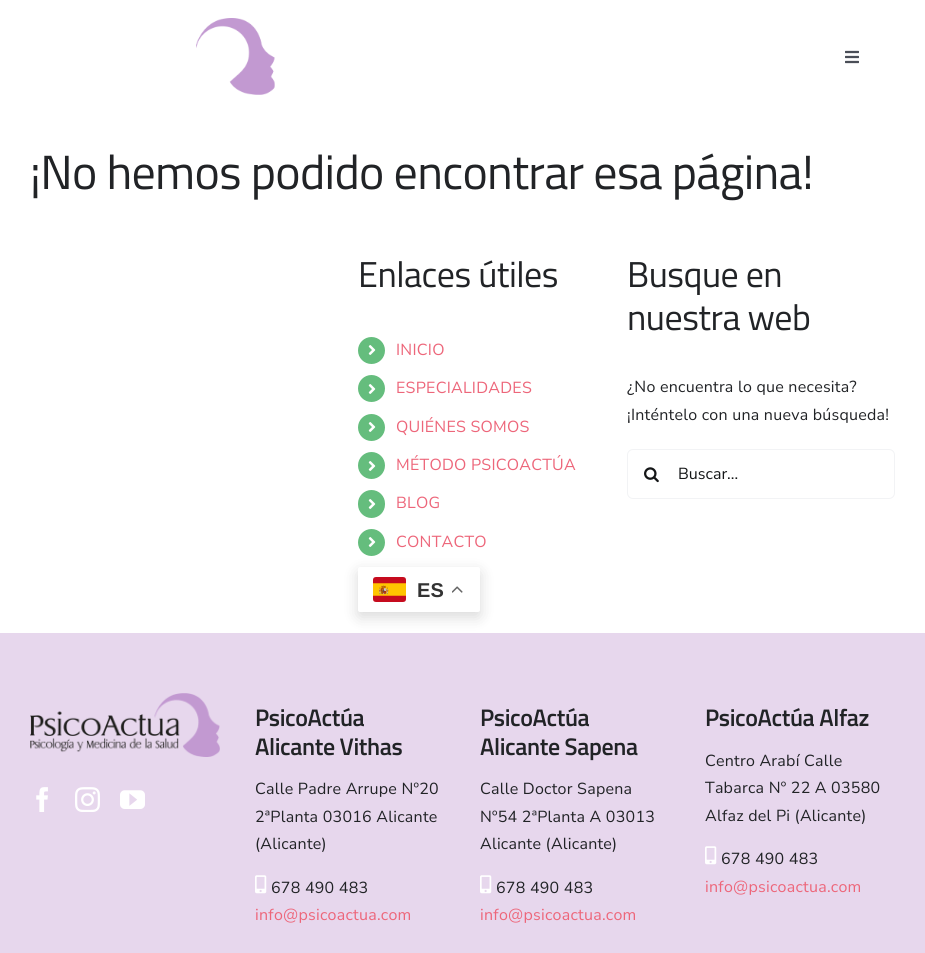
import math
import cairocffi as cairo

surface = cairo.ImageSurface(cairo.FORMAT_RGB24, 925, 953)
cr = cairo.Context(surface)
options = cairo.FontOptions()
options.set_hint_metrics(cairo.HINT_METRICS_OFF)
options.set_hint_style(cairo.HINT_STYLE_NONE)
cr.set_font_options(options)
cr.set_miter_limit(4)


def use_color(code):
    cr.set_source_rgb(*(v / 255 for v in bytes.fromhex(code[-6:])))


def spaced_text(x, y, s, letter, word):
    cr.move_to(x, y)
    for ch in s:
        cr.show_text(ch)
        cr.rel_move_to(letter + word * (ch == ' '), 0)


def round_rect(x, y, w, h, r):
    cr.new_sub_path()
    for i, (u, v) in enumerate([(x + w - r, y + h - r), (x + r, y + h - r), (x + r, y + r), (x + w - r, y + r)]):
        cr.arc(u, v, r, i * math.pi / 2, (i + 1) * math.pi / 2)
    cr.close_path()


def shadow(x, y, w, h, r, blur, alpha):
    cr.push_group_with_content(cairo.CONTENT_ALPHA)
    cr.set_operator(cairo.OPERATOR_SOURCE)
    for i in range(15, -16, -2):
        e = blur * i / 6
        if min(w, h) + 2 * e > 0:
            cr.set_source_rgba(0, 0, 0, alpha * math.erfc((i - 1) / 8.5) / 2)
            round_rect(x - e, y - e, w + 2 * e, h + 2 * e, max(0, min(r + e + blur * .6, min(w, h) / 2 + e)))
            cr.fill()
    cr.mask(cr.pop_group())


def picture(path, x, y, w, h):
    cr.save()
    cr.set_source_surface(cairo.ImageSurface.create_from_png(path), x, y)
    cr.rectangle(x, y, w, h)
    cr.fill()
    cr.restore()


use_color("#ffffff")
cr.paint()
picture("img1.png", 196, 18, 79, 77)
picture("img2.png", 845, 50, 14, 14)
cr.select_font_face("Titillium Web")
cr.set_font_size(48)
use_color("#212326")
spaced_text(30, 189, "¡No hemos podido encontrar esa página!", -0.7, 0)
cr.set_font_size(36)
spaced_text(358, 287, "Enlaces útiles", -0.5, 0)
use_color("#65bd7d")
cr.new_path()
cr.arc(371.5, 350.5, 13.5, 0, 2 * math.pi)
cr.fill()
picture("img3.png", 368, 345, 8, 10)
cr.select_font_face("Nunito Sans")
cr.set_font_size(16)
use_color("#ed667a")
spaced_text(396, 355, "INICIO", 0.25, 0)
use_color("#65bd7d")
cr.new_path()
cr.arc(371.5, 388.5, 13.5, 0, 2 * math.pi)
cr.fill()
picture("img3.png", 368, 384, 8, 10)
use_color("#ed667a")
spaced_text(396, 393, "ESPECIALIDADES", 0.25, 0)
use_color("#65bd7d")
cr.new_path()
cr.arc(371.5, 427.5, 13.5, 0, 2 * math.pi)
cr.fill()
picture("img3.png", 368, 422, 8, 10)
use_color("#ed667a")
spaced_text(396, 432, "QUIÉNES SOMOS", 0.25, 0)
use_color("#65bd7d")
cr.new_path()
cr.arc(371.5, 465.5, 13.5, 0, 2 * math.pi)
cr.fill()
picture("img3.png", 368, 461, 8, 10)
use_color("#ed667a")
spaced_text(396, 470, "MÉTODO PSICOACTÚA", 0.25, 0)
use_color("#65bd7d")
round_rect(358, 490, 27, 28, 13.5)
cr.fill()
picture("img3.png", 368, 499, 8, 10)
use_color("#ed667a")
spaced_text(396, 508, "BLOG", 0.25, 0)
use_color("#65bd7d")
cr.new_path()
cr.arc(371.5, 542.5, 13.5, 0, 2 * math.pi)
cr.fill()
picture("img3.png", 368, 537, 8, 10)
use_color("#ed667a")
spaced_text(396, 547, "CONTACTO", 0.25, 0)
use_color("#000000")
shadow(358, 572, 122, 45, 2, 7.5, 0.15)
use_color("#ffffff")
round_rect(358, 567, 122, 45, 2)
cr.fill()
picture("img4.png", 373, 577, 33, 25)
cr.select_font_face("Liberation Sans", cairo.FONT_SLANT_NORMAL, cairo.FONT_WEIGHT_BOLD)
cr.set_font_size(20)
use_color("#333333")
spaced_text(417, 597, "ES", 0.25, 0)
picture("img5.png", 452, 586, 11, 7)
cr.select_font_face("Titillium Web")
cr.set_font_size(36)
use_color("#212326")
spaced_text(627, 287, "Busque en", -0.5, 0)
spaced_text(627, 330, "nuestra web", -0.5, 0)
cr.select_font_face("Nunito Sans")
cr.set_font_size(16)
spaced_text(627, 392, "¿No encuentra lo que necesita?", 0.25, 0)
spaced_text(627, 420, "¡Inténtelo con una nueva búsqueda!", 0.25, 0)
round_rect(627.5, 449.5, 267, 49, 5.5)
use_color("#f2f3f5")
cr.set_line_width(1)
cr.stroke()
picture("img6.png", 644, 467, 15, 16)
use_color("#141617")
cr.move_to(678, 479)
cr.show_text("Buscar...")
use_color("#e7d7ed")
cr.rectangle(0, 633, 925, 320)
cr.fill()
picture("img7.png", 30, 693, 190, 64)
picture("img8.png", 36, 787, 12, 25)
picture("img9.png", 75, 787, 25, 25)
picture("img10.png", 120, 790, 25, 19)
cr.select_font_face("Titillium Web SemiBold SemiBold")
cr.set_font_size(24)
use_color("#212326")
spaced_text(255, 726, "PsicoActúa", -0.4, 0)
spaced_text(255, 755, "Alicante Vithas", -0.4, 0)
cr.select_font_face("Nunito Sans")
cr.set_font_size(16)
spaced_text(255, 794, "Calle Padre Arrupe Nº20", 0.25, 0)
spaced_text(255, 822, "2ªPlanta 03016 Alicante", 0.25, 0)
spaced_text(255, 849, "(Alicante)", 0.25, 0)
picture("img11.png", 255, 875, 12, 19)
spaced_text(271, 893, "678 490 483", 0.25, 0)
use_color("#ed667a")
spaced_text(255, 920, "info@psicoactua.com", 0.25, 0)
cr.select_font_face("Titillium Web SemiBold SemiBold")
cr.set_font_size(24)
use_color("#212326")
spaced_text(480, 726, "PsicoActúa", -0.4, 0)
spaced_text(480, 755, "Alicante Sapena", -0.4, 0)
cr.select_font_face("Nunito Sans")
cr.set_font_size(16)
spaced_text(480, 794, "Calle Doctor Sapena", 0.25, 0)
spaced_text(480, 822, "Nº54 2ªPlanta A 03013", 0.25, 0)
spaced_text(480, 849, "Alicante (Alicante)", 0.25, 0)
picture("img11.png", 480, 875, 12, 19)
spaced_text(496, 893, "678 490 483", 0.25, 0)
use_color("#ed667a")
spaced_text(480, 920, "info@psicoactua.com", 0.25, 0)
cr.select_font_face("Titillium Web SemiBold SemiBold")
cr.set_font_size(24)
use_color("#212326")
spaced_text(705, 726, "PsicoActúa Alfaz", -0.4, 0)
cr.select_font_face("Nunito Sans")
cr.set_font_size(16)
spaced_text(705, 766, "Centro Arabí Calle", 0.25, 0)
spaced_text(705, 793, "Tabarca Nº 22 A 03580", 0.25, 0)
spaced_text(705, 821, "Alfaz del Pi (Alicante)", 0.25, 0)
picture("img11.png", 705, 846, 12, 19)
spaced_text(721, 864, "678 490 483", 0.25, 0)
use_color("#ed667a")
spaced_text(705, 892, "info@psicoactua.com", 0.25, 0)
surface.write_to_png("result.png")
